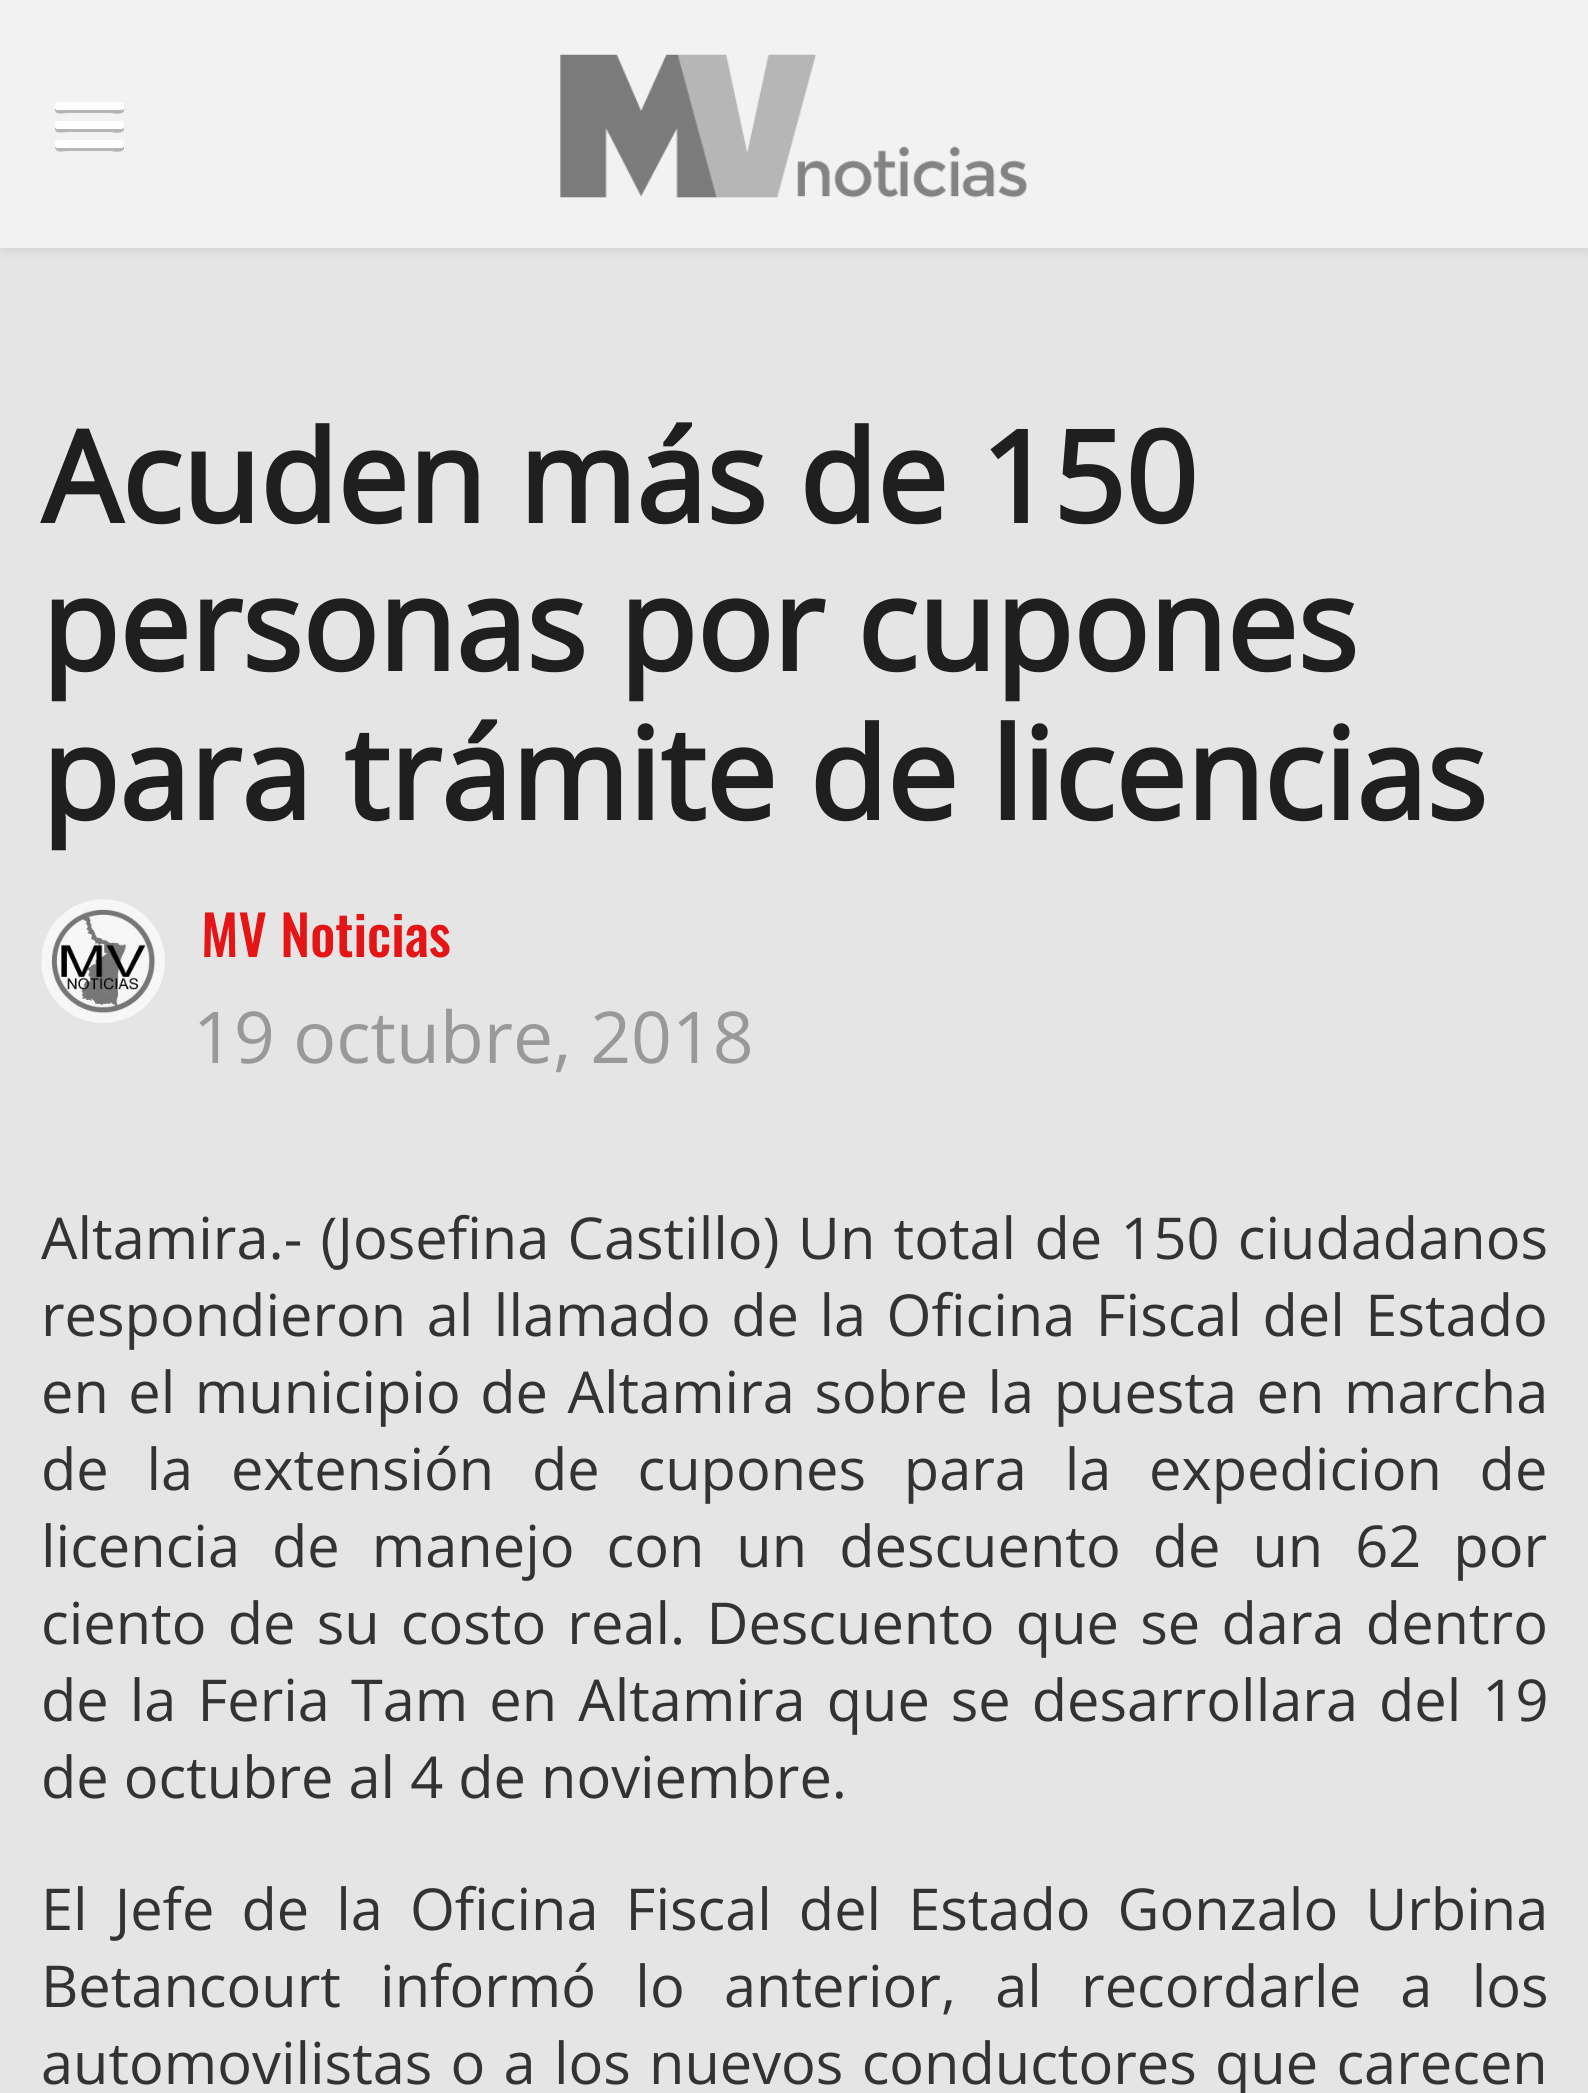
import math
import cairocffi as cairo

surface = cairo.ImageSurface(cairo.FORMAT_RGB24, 1588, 2093)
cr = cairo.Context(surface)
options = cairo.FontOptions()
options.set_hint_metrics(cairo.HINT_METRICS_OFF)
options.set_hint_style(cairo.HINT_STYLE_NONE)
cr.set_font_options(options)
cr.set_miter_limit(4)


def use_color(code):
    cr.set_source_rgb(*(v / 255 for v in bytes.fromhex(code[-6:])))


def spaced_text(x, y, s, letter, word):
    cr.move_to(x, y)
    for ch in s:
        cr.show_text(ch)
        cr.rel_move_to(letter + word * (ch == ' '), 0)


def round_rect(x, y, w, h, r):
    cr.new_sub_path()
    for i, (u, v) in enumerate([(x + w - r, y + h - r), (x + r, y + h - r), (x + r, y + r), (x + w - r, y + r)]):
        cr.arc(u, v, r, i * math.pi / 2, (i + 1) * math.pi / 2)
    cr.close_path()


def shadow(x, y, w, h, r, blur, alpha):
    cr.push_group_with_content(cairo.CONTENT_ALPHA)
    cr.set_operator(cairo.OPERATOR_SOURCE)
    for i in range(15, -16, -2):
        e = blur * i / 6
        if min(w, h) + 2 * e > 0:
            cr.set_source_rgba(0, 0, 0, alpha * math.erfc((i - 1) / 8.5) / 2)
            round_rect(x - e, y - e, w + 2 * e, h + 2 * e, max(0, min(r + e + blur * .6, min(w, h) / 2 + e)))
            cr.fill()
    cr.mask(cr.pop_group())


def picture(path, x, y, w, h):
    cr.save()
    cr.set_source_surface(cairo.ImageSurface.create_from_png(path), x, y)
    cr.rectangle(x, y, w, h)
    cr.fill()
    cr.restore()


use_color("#e5e5e5")
cr.paint()
use_color("#000000")
shadow(0, 6, 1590, 247, 0, 4, 0.06)
use_color("#f2f2f2")
cr.rectangle(0, 0, 1588, 248)
cr.fill()
use_color("#b6b6b6")
cr.new_path()
cr.move_to(55, 108)
cr.curve_to(54, 116, 63, 113, 68, 113)
cr.line_to(110, 113)
cr.curve_to(111, 113, 124, 116, 124, 110)
cr.line_to(124, 107)
cr.curve_to(124, 109, 123, 110, 121, 110)
cr.line_to(58, 110)
cr.curve_to(56, 110, 55, 109, 55, 108)
cr.close_path()
cr.fill()
use_color("#ffffff")
round_rect(55, 102, 69, 8, 3)
cr.fill()
use_color("#b6b6b6")
cr.new_path()
cr.move_to(55, 127)
cr.curve_to(54, 135, 62, 132, 68, 132)
cr.line_to(110, 132)
cr.curve_to(111, 132, 124, 135, 124, 129)
cr.line_to(124, 126)
cr.curve_to(124, 128, 123, 129, 121, 129)
cr.line_to(58, 129)
cr.curve_to(56, 129, 55, 128, 55, 127)
cr.close_path()
cr.fill()
use_color("#ffffff")
round_rect(55, 121, 69, 8, 3)
cr.fill()
use_color("#b6b6b6")
cr.new_path()
cr.move_to(55, 146)
cr.curve_to(55, 154, 62, 151, 68, 151)
cr.line_to(110, 151)
cr.curve_to(111, 151, 124, 154, 124, 148)
cr.line_to(124, 145)
cr.line_to(124, 146)
cr.line_to(122, 148)
cr.line_to(58, 148)
cr.line_to(56, 148)
cr.close_path()
cr.fill()
use_color("#ffffff")
round_rect(55, 140, 69, 8, 3)
cr.fill()
picture("img1.png", 560, 54, 467, 144)
cr.select_font_face("Open Sans", cairo.FONT_SLANT_NORMAL, cairo.FONT_WEIGHT_BOLD)
cr.set_font_size(126.5)
use_color("#201f1f")
cr.move_to(41, 523)
cr.show_text("Acuden más de 150")
cr.move_to(41, 671)
cr.show_text("personas por cupones")
cr.move_to(41, 820)
cr.show_text("para trámite de licencias")
picture("img2.png", 41, 899, 124, 124)
cr.select_font_face("Oswald Medium")
cr.set_font_size(55)
use_color("#e51515")
cr.move_to(201, 957)
cr.show_text("MV Noticias")
cr.select_font_face("Open Sans")
cr.set_font_size(71.5)
use_color("#999999")
cr.move_to(193, 1063)
cr.show_text("19 octubre, 2018")
cr.set_font_size(57.75)
use_color("#333333")
spaced_text(41, 1259, "Altamira.- (Josefina Castillo) Un total de 150 ciudadanos", 0, 3.25)
spaced_text(41, 1336, "respondieron al llamado de la Oficina Fiscal del Estado", 0, 5.5)
spaced_text(41, 1413, "en el municipio de Altamira sobre la puesta en marcha", 0, 4.5)
spaced_text(41, 1490, "de la extensión de cupones para la expedicion de", 0, 22.75)
spaced_text(41, 1567, "licencia de manejo con un descuento de un 62 por", 0, 17)
spaced_text(41, 1644, "ciento de su costo real. Descuento que se dara dentro", 0, 6.25)
spaced_text(41, 1721, "de la Feria Tam en Altamira que se desarrollara del 19", 0, 6)
cr.move_to(41, 1798)
cr.show_text("de octubre al 4 de noviembre.")
spaced_text(41, 1930, "El Jefe de la Oficina Fiscal del Estado Gonzalo Urbina", 0, 12)
spaced_text(41, 2007, "Betancourt informó lo anterior, al recordarle a los", 0, 24.25)
spaced_text(41, 2084, "automovilistas o a los nuevos conductores que carecen", 0, 3.25)
surface.write_to_png("result.png")
